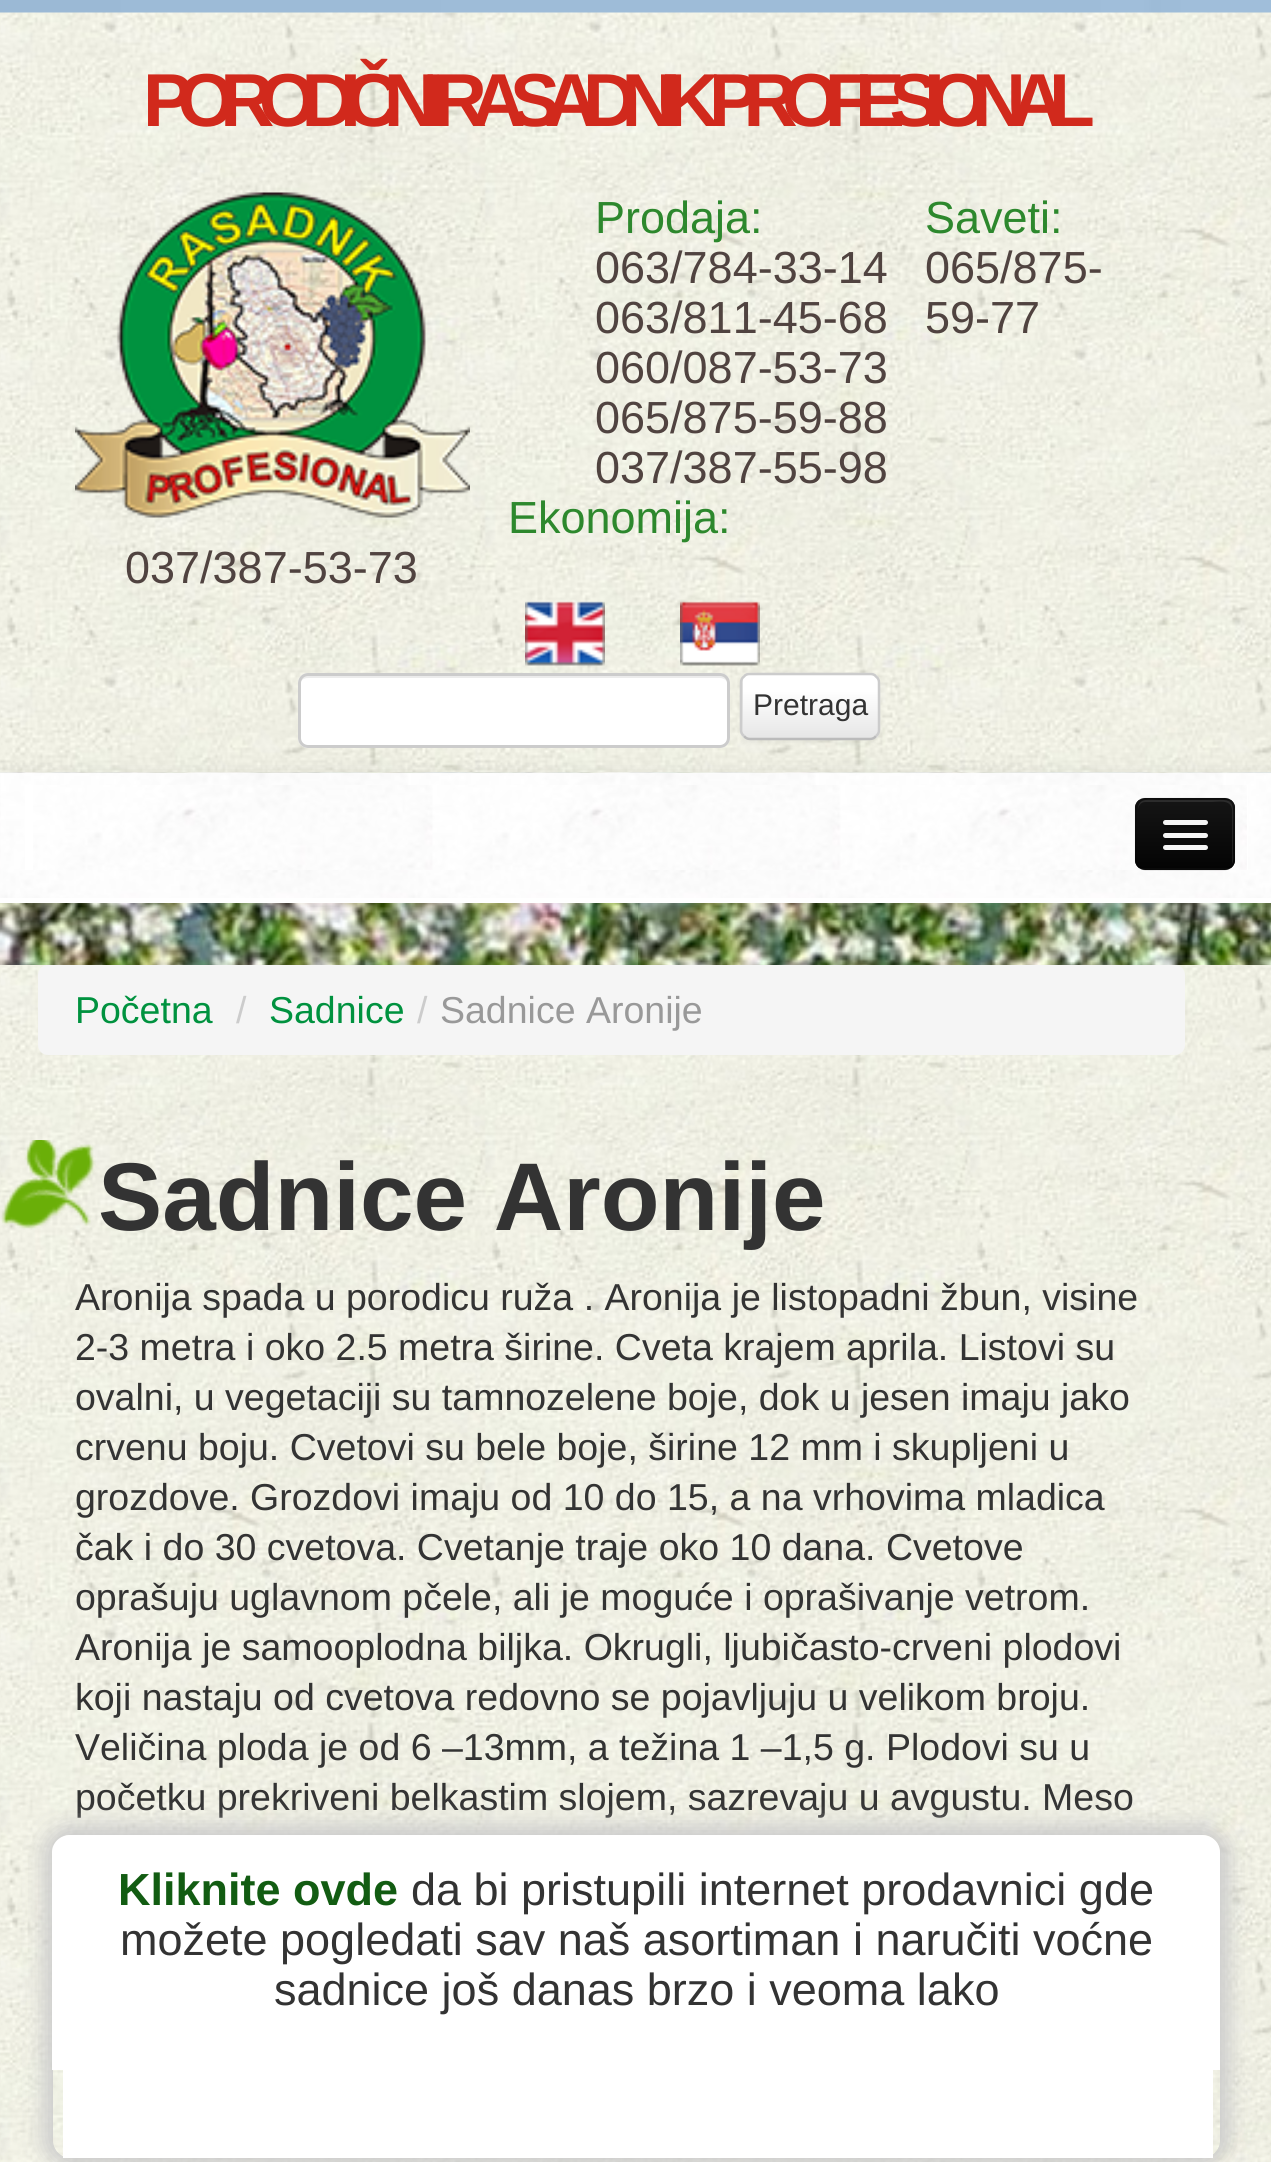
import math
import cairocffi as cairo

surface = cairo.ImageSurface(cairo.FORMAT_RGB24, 1271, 2162)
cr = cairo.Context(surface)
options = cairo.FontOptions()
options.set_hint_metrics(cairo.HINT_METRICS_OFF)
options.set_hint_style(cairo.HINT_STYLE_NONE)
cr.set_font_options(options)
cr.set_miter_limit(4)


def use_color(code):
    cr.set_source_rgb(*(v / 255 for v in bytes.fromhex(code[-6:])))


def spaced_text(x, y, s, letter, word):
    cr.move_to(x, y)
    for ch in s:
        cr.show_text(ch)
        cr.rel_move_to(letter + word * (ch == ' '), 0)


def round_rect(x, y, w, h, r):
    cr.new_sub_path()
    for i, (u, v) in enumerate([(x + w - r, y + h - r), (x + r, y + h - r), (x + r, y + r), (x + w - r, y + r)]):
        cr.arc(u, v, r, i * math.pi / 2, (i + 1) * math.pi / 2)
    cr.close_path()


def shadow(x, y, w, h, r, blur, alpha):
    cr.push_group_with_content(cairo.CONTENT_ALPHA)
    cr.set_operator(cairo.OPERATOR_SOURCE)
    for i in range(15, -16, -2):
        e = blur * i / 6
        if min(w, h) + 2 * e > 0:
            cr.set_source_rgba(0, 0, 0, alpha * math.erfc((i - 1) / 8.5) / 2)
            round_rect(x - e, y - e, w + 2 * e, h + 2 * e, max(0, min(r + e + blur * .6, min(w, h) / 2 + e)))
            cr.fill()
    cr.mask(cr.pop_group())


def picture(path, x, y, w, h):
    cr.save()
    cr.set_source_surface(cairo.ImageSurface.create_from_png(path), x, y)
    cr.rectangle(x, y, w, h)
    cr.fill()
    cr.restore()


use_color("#ffffff")
cr.paint()
picture("img1.png", 0, 0, 1271, 965)
picture("img2.png", 0, 12, 1271, 761)
cr.select_font_face("Liberation Sans", cairo.FONT_SLANT_NORMAL, cairo.FONT_WEIGHT_BOLD)
cr.set_font_size(75)
use_color("#d1291c")
spaced_text(143, 126, "PORODIČNI RASADNIK PROFESIONAL", -15.6, 0)
picture("img3.png", 75, 192, 395, 326)
cr.select_font_face("Liberation Sans")
cr.set_font_size(45)
use_color("#2d882d")
cr.move_to(925, 233)
cr.show_text("Saveti:")
use_color("#504340")
cr.move_to(925, 283)
cr.show_text("065/875-")
cr.move_to(925, 333)
cr.show_text("59-77")
use_color("#2d882d")
cr.move_to(508, 533)
cr.show_text("Ekonomija:")
use_color("#504340")
cr.move_to(125, 583)
cr.show_text("037/387-53-73")
use_color("#2d882d")
cr.move_to(595, 233)
cr.show_text("Prodaja:")
use_color("#504340")
cr.move_to(595, 283)
cr.show_text("063/784-33-14")
cr.move_to(595, 333)
cr.show_text("063/811-45-68")
cr.move_to(595, 383)
cr.show_text("060/087-53-73")
cr.move_to(595, 433)
cr.show_text("065/875-59-88")
cr.move_to(595, 483)
cr.show_text("037/387-55-98")
picture("img4.png", 525, 601, 80, 65)
picture("img5.png", 680, 601, 80, 65)
picture("img6.png", 0, 772, 1271, 1)
use_color("#000000")
shadow(0, 775, 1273, 130, 0, 12.5, 0.1)
use_color("#ffffff")
round_rect(298, 673, 432, 75, 10)
cr.fill()
use_color("#ececec")
cr.new_path()
cr.move_to(308, 678)
cr.line_to(720, 678)
cr.curve_to(724, 678, 728, 681, 728, 685)
cr.line_to(728, 683)
cr.curve_to(728, 679, 724, 675, 720, 675)
cr.line_to(308, 675)
cr.curve_to(304, 675, 300, 679, 300, 683)
cr.line_to(300, 685)
cr.curve_to(300, 681, 303, 678, 308, 678)
cr.close_path()
cr.fill()
round_rect(299.5, 674.5, 429, 72, 8.5)
use_color("#cccccc")
cr.set_line_width(3)
cr.stroke()
use_color("#000000")
shadow(740, 675, 140, 68, 10, 2.5, 0.05)
use_color("#e6e6e6")
round_rect(740, 673, 140, 67, 10)
cr.fill()
cr.save()
round_rect(740, 673, 140, 67, 10)
cr.clip()
gradient = cairo.LinearGradient(810, 675, 810, 738)
gradient.add_color_stop_rgba(0, 1, 1, 1, 1)
gradient.add_color_stop_rgba(0.25, 1, 1, 1, 1)
gradient.add_color_stop_rgba(1, 0.902, 0.902, 0.902, 1)
cr.set_source(gradient)
cr.rectangle(743, 675, 135, 63)
cr.fill()
cr.restore()
cr.new_path()
cr.move_to(876, 736)
cr.curve_to(874.5, 738, 872.5, 739, 870, 739)
cr.line_to(750, 739)
cr.curve_to(747.5, 739, 745.5, 738, 744, 736)
use_color("#bbbbbb")
cr.set_line_width(2.5)
cr.stroke()
cr.new_path()
cr.move_to(744, 736)
cr.curve_to(742, 734.5, 741, 732.5, 741, 730)
cr.line_to(741, 682.5)
cr.curve_to(741, 680, 742, 678, 744, 676.5)
cr.curve_to(745.5, 674.5, 747.5, 674, 750, 674)
cr.line_to(870, 674)
cr.curve_to(872.5, 674, 874.5, 674.5, 876, 676.5)
cr.curve_to(878, 678, 879, 680, 879, 682.5)
cr.line_to(879, 730)
cr.curve_to(879, 732.5, 878, 734.5, 876, 736)
use_color("#cccccc")
cr.stroke()
cr.set_font_size(30)
use_color("#333333")
cr.move_to(753, 715)
cr.show_text("Pretraga")
picture("img7.png", 0, 772, 1271, 126)
use_color("#ffffff")
cr.rectangle(0, 898, 1271, 5)
cr.fill()
cr.rectangle(25, 785, 1223, 85)
cr.fill()
picture("img8.png", 33, 785, 1214, 85)
use_color("#0e0e0e")
round_rect(1135, 798, 100, 72, 10)
cr.fill()
cr.save()
round_rect(1135, 798, 100, 72, 10)
cr.clip()
gradient = cairo.LinearGradient(1185, 800, 1185, 868)
gradient.add_color_stop_rgba(0, 0.082, 0.082, 0.082, 1)
gradient.add_color_stop_rgba(1, 0.016, 0.016, 0.016, 1)
cr.set_source(gradient)
cr.rectangle(1135, 800, 100, 68)
cr.fill()
cr.restore()
cr.set_source_rgba(1, 1, 1, 0.1)
cr.new_path()
cr.move_to(1145, 802)
cr.line_to(1212, 802)
cr.curve_to(1218, 802, 1230, 799, 1232, 809)
cr.line_to(1232, 864)
cr.curve_to(1234, 861, 1233, 855, 1233, 851)
cr.line_to(1233, 834)
cr.curve_to(1233, 795, 1238, 800, 1199, 800)
cr.line_to(1159, 800)
cr.curve_to(1149, 800, 1138, 797, 1138, 810)
cr.curve_to(1138, 806, 1141, 802, 1145, 802)
cr.close_path()
cr.fill()
cr.new_path()
cr.move_to(1231, 866)
cr.curve_to(1229.5, 868, 1227.5, 869, 1225, 869)
cr.line_to(1145, 869)
cr.curve_to(1142.5, 869, 1140.5, 868, 1139, 866)
cr.set_source_rgba(0, 0, 0, 0.25)
cr.stroke()
cr.new_path()
cr.move_to(1139, 866)
cr.curve_to(1137, 864.5, 1136, 862.5, 1136, 860)
cr.line_to(1136, 807.5)
cr.curve_to(1136, 805, 1137, 803, 1139, 801.5)
cr.curve_to(1140.5, 799.5, 1142.5, 799, 1145, 799)
cr.line_to(1225, 799)
cr.curve_to(1227.5, 799, 1229.5, 799.5, 1231, 801.5)
cr.curve_to(1233, 803, 1234, 805, 1234, 807.5)
cr.line_to(1234, 860)
cr.curve_to(1234, 862.5, 1233, 864.5, 1231, 866)
cr.set_source_rgba(0, 0, 0, 0.1)
cr.stroke()
use_color("#0b0b0b")
cr.new_path()
cr.move_to(1163, 824)
cr.curve_to(1161, 829, 1172, 828, 1172, 828)
cr.line_to(1199, 828)
cr.curve_to(1200, 828, 1207, 830, 1208, 826)
cr.line_to(1207, 824)
cr.line_to(1205, 825)
cr.curve_to(1202, 825, 1165, 826, 1163, 824)
cr.close_path()
cr.fill()
use_color("#f5f5f5")
round_rect(1163, 820, 45, 5, 2.5)
cr.fill()
use_color("#090909")
cr.new_path()
cr.move_to(1163, 837)
cr.curve_to(1161, 842, 1171, 840, 1172, 840)
cr.line_to(1199, 840)
cr.curve_to(1200, 840, 1207, 842, 1208, 838)
cr.line_to(1207, 836)
cr.line_to(1205, 837)
cr.line_to(1165, 837)
cr.close_path()
cr.fill()
use_color("#f5f5f5")
round_rect(1163, 833, 45, 5, 2.5)
cr.fill()
round_rect(1163, 845, 45, 5, 2.5)
cr.fill()
picture("img9.png", 0, 965, 1271, 1197)
round_rect(38, 965, 1147, 90, 10)
cr.fill()
cr.set_font_size(37.5)
use_color("#00923f")
cr.move_to(75, 1023)
cr.show_text("Početna")
use_color("#cccccc")
cr.move_to(236, 1023)
cr.show_text("/")
use_color("#00923f")
cr.move_to(269, 1023)
cr.show_text("Sadnice")
use_color("#cccccc")
cr.move_to(417, 1023)
cr.show_text("/")
use_color("#999999")
cr.move_to(440, 1023)
cr.show_text("Sadnice Aronije")
picture("img10.png", 1, 1140, 95, 90)
cr.select_font_face("Liberation Sans", cairo.FONT_SLANT_NORMAL, cairo.FONT_WEIGHT_BOLD)
cr.set_font_size(96.25)
use_color("#333333")
cr.move_to(98, 1230)
cr.show_text("Sadnice Aronije")
cr.select_font_face("Liberation Sans")
cr.set_font_size(37.5)
cr.move_to(75, 1310)
cr.show_text("Aronija spada u porodicu ruža . Aronija je listopadni žbun, visine")
cr.move_to(75, 1360)
cr.show_text("2-3 metra i oko 2.5 metra širine. Cveta krajem aprila. Listovi su")
cr.move_to(75, 1410)
cr.show_text("ovalni, u vegetaciji su tamnozelene boje, dok u jesen imaju jako")
cr.move_to(75, 1460)
cr.show_text("crvenu boju. Cvetovi su bele boje, širine 12 mm i skupljeni u")
cr.move_to(75, 1510)
cr.show_text("grozdove. Grozdovi imaju od 10 do 15, a na vrhovima mladica")
cr.move_to(75, 1560)
cr.show_text("čak i do 30 cvetova. Cvetanje traje oko 10 dana. Cvetove")
cr.move_to(75, 1610)
cr.show_text("oprašuju uglavnom pčele, ali je moguće i oprašivanje vetrom.")
cr.move_to(75, 1660)
cr.show_text("Aronija je samooplodna biljka. Okrugli, ljubičasto-crveni plodovi")
cr.move_to(75, 1710)
cr.show_text("koji nastaju od cvetova redovno se pojavljuju u velikom broju.")
cr.move_to(75, 1760)
cr.show_text("Veličina ploda je od 6 –13mm, a težina 1 –1,5 g. Plodovi su u")
cr.move_to(75, 1810)
cr.show_text("početku prekriveni belkastim slojem, sazrevaju u avgustu. Meso")
cr.save()
cr.set_fill_rule(cairo.FILL_RULE_EVEN_ODD)
cr.new_path()
cr.move_to(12, 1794)
cr.line_to(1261, 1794)
cr.line_to(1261, 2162)
cr.line_to(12, 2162)
cr.close_path()
cr.move_to(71, 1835)
cr.line_to(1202, 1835)
cr.curve_to(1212, 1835, 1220, 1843, 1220, 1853)
cr.line_to(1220, 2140)
cr.curve_to(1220, 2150, 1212, 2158, 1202, 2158)
cr.line_to(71, 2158)
cr.curve_to(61, 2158, 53, 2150, 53, 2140)
cr.line_to(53, 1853)
cr.curve_to(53, 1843, 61, 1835, 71, 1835)
cr.close_path()
cr.clip()
use_color("#cccccc")
shadow(43, 1825, 1187, 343, 28, 10, 1)
cr.restore()
use_color("#ffffff")
cr.new_path()
cr.move_to(70, 1835)
cr.line_to(1202, 1835)
cr.curve_to(1212, 1835, 1220, 1843, 1220, 1852)
cr.line_to(1220, 2070)
cr.line_to(52, 2070)
cr.line_to(52, 1852)
cr.curve_to(52, 1843, 60, 1835, 70, 1835)
cr.close_path()
cr.fill()
cr.rectangle(63, 2070, 1150, 88)
cr.fill()
cr.select_font_face("Liberation Sans", cairo.FONT_SLANT_NORMAL, cairo.FONT_WEIGHT_BOLD)
cr.set_font_size(45)
use_color("#125c12")
cr.move_to(118, 1905)
cr.show_text("Kliknite ovde")
cr.select_font_face("Liberation Sans")
use_color("#333333")
cr.move_to(411, 1905)
cr.show_text("da bi pristupili internet prodavnici gde")
cr.move_to(120, 1955)
cr.show_text("možete pogledati sav naš asortiman i naručiti voćne")
cr.move_to(274, 2005)
cr.show_text("sadnice još danas brzo i veoma lako")
surface.write_to_png("result.png")
